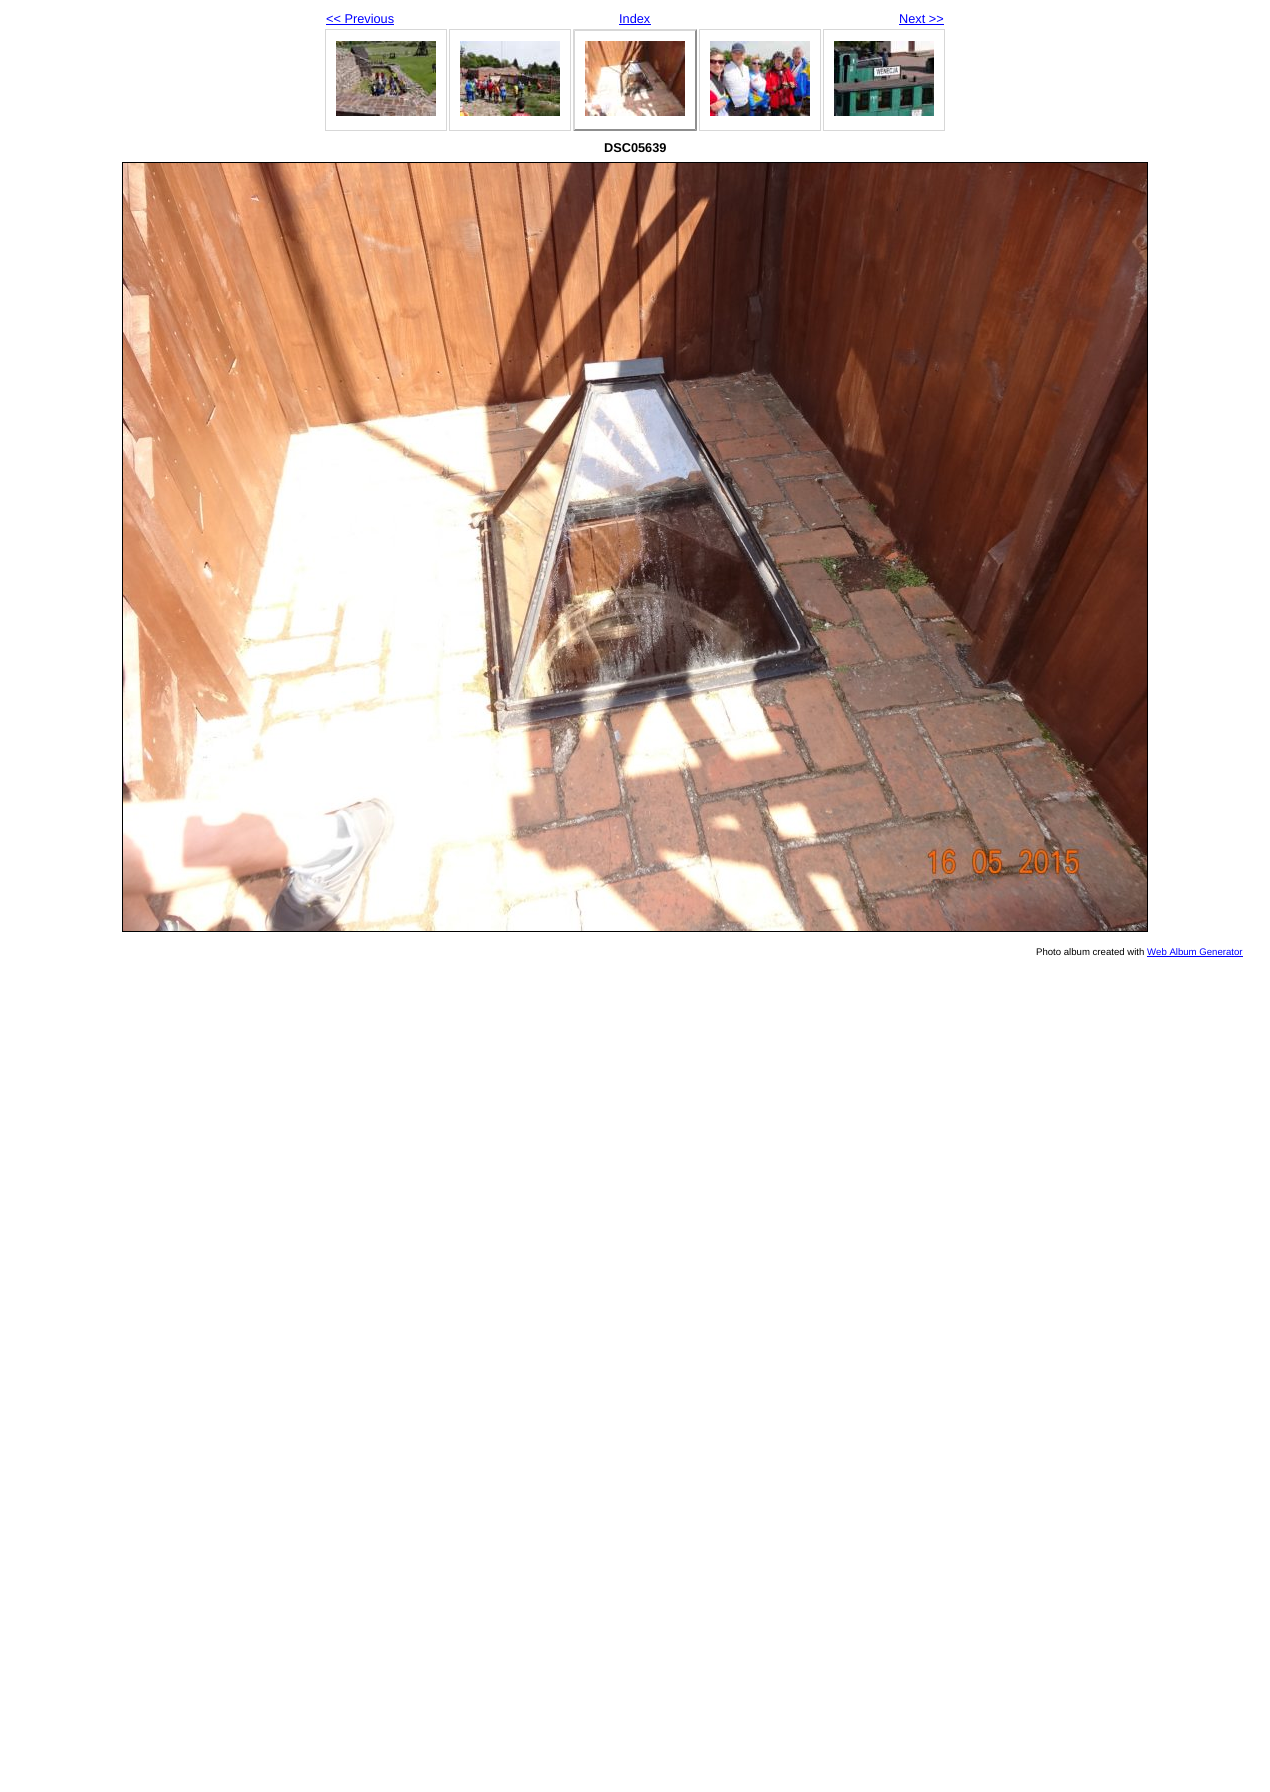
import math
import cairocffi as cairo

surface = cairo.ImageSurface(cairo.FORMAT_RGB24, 1270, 1792)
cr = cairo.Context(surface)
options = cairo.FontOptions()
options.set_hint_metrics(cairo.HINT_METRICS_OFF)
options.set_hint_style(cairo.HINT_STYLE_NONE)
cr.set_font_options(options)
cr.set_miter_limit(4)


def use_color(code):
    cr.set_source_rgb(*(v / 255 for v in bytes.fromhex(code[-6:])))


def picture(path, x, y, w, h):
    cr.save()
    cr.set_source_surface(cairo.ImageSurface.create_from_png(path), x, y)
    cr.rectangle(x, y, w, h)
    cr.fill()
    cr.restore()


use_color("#ffffff")
cr.paint()
cr.select_font_face("Liberation Sans")
cr.set_font_size(12.75)
use_color("#0000ff")
cr.move_to(326, 23)
cr.show_text("<< Previous")
cr.rectangle(326, 24, 68, 1)
cr.fill()
cr.move_to(619, 23)
cr.show_text("Index")
cr.rectangle(619, 24, 32, 1)
cr.fill()
cr.move_to(899, 23)
cr.show_text("Next >>")
cr.rectangle(899, 24, 45, 1)
cr.fill()
cr.rectangle(325.5, 29.5, 121, 101)
use_color("#d7d7d7")
cr.set_line_width(1)
cr.stroke()
picture("img1.png", 336, 41, 100, 75)
cr.rectangle(449.5, 29.5, 121, 101)
cr.stroke()
picture("img2.png", 460, 41, 100, 75)
cr.new_path()
cr.move_to(573, 29)
cr.line_to(697, 29)
cr.line_to(695, 31)
cr.line_to(575, 31)
cr.close_path()
cr.fill()
use_color("#8f8f8f")
cr.new_path()
cr.move_to(697, 29)
cr.line_to(697, 131)
cr.line_to(695, 129)
cr.line_to(695, 31)
cr.close_path()
cr.fill()
cr.new_path()
cr.move_to(697, 131)
cr.line_to(573, 131)
cr.line_to(575, 129)
cr.line_to(695, 129)
cr.close_path()
cr.fill()
use_color("#d7d7d7")
cr.new_path()
cr.move_to(573, 131)
cr.line_to(573, 29)
cr.line_to(575, 31)
cr.line_to(575, 129)
cr.close_path()
cr.fill()
picture("img3.png", 585, 41, 100, 75)
cr.rectangle(699.5, 29.5, 121, 101)
cr.stroke()
picture("img4.png", 710, 41, 100, 75)
cr.rectangle(823.5, 29.5, 121, 101)
cr.stroke()
picture("img5.png", 834, 41, 100, 75)
cr.select_font_face("Liberation Sans", cairo.FONT_SLANT_NORMAL, cairo.FONT_WEIGHT_BOLD)
use_color("#000000")
cr.move_to(604, 152)
cr.show_text("DSC05639")
cr.rectangle(122.5, 162.5, 1025, 769)
cr.stroke()
picture("img6.png", 123, 163, 1024, 768)
cr.select_font_face("Liberation Sans")
cr.set_font_size(9.6)
cr.move_to(1036, 955)
cr.show_text("Photo album created with")
use_color("#0000ff")
cr.move_to(1147, 955)
cr.show_text("Web Album Generator")
cr.rectangle(1147, 956, 96, 1)
cr.fill()
surface.write_to_png("result.png")
